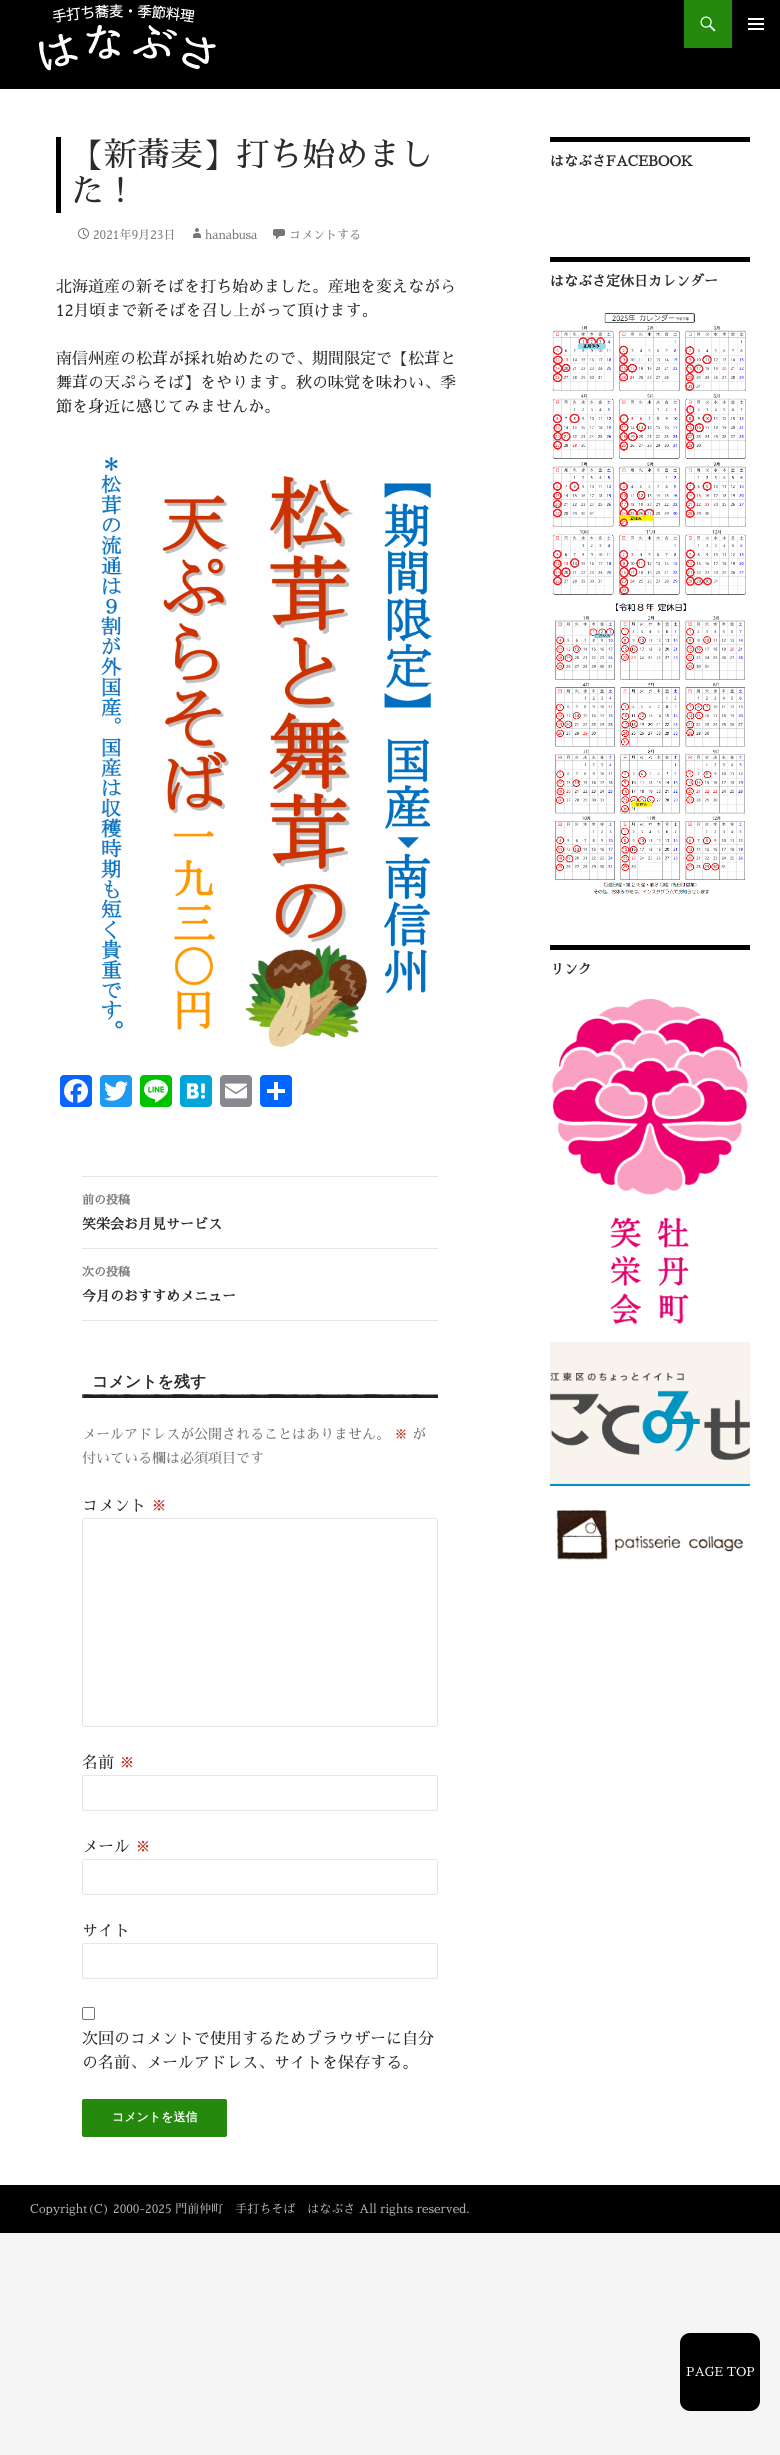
import math
import cairocffi as cairo

surface = cairo.ImageSurface(cairo.FORMAT_RGB24, 780, 2455)
cr = cairo.Context(surface)
options = cairo.FontOptions()
options.set_hint_metrics(cairo.HINT_METRICS_OFF)
options.set_hint_style(cairo.HINT_STYLE_NONE)
cr.set_font_options(options)
cr.set_miter_limit(4)


def use_color(code):
    cr.set_source_rgb(*(v / 255 for v in bytes.fromhex(code[-6:])))


def round_rect(x, y, w, h, r):
    cr.new_sub_path()
    for i, (u, v) in enumerate([(x + w - r, y + h - r), (x + r, y + h - r), (x + r, y + r), (x + w - r, y + r)]):
        cr.arc(u, v, r, i * math.pi / 2, (i + 1) * math.pi / 2)
    cr.close_path()


def picture(path, x, y, w, h):
    cr.save()
    cr.set_source_surface(cairo.ImageSurface.create_from_png(path), x, y)
    cr.rectangle(x, y, w, h)
    cr.fill()
    cr.restore()


use_color("#f5f5f5")
cr.paint()
use_color("#ffffff")
cr.rectangle(0, 89, 780, 2096)
cr.fill()
use_color("#000000")
cr.rectangle(0, 0, 780, 89)
cr.fill()
picture("img1.png", 39, 4, 177, 67)
use_color("#24890d")
cr.rectangle(684, 0, 48, 48)
cr.fill()
picture("img2.png", 700, 16, 16, 16)
picture("img3.png", 748, 18, 16, 12)
use_color("#000000")
cr.rectangle(56, 137, 5, 76)
cr.fill()
cr.select_font_face("Sawarabi Mincho")
cr.set_font_size(33)
use_color("#2b2b2b")
cr.move_to(71, 166)
cr.show_text("【新蕎麦】打ち始めまし")
cr.move_to(71, 202)
cr.show_text("た！")
picture("img4.png", 78, 228, 11, 11)
cr.set_font_size(12)
use_color("#767676")
cr.move_to(93, 239)
cr.show_text("2021年9月23日")
picture("img5.png", 193, 228, 8, 10)
cr.move_to(205, 239)
cr.show_text("hanabusa")
picture("img6.png", 273, 229, 12, 11)
cr.move_to(289, 239)
cr.show_text("コメントする")
cr.set_font_size(16)
use_color("#2b2b2b")
cr.move_to(56, 292)
cr.show_text("北海道産の新そばを打ち始めました。産地を変えながら")
cr.move_to(56, 316)
cr.show_text("12月頃まで新そばを召し上がって頂けます。")
cr.move_to(56, 364)
cr.show_text("南信州産の松茸が採れ始めたので、期間限定で【松茸と")
cr.move_to(56, 388)
cr.show_text("舞茸の天ぷらそば】をやります。秋の味覚を味わい、季")
cr.move_to(56, 412)
cr.show_text("節を身近に感じてみませんか。")
picture("img7.png", 101, 457, 332, 591)
use_color("#0866ff")
round_rect(60, 1075, 32, 32, 4)
cr.fill()
picture("img8.png", 64, 1079, 24, 24)
use_color("#1d9bf0")
round_rect(100, 1075, 32, 32, 4)
cr.fill()
picture("img9.png", 104, 1081, 24, 20)
use_color("#00c300")
round_rect(140, 1075, 32, 32, 4)
cr.fill()
picture("img10.png", 144, 1079, 24, 24)
use_color("#00a6db")
round_rect(180, 1075, 32, 32, 4)
cr.fill()
picture("img11.png", 186, 1083, 19, 16)
use_color("#888990")
round_rect(220, 1075, 32, 32, 4)
cr.fill()
picture("img12.png", 225, 1083, 22, 16)
use_color("#0166ff")
round_rect(260, 1075, 32, 32, 4)
cr.fill()
use_color("#ffffff")
cr.rectangle(274, 1082, 4, 18)
cr.fill()
cr.rectangle(267, 1089, 18, 4)
cr.fill()
use_color("#e6e6e6")
cr.rectangle(82, 1176, 356, 1)
cr.fill()
cr.rectangle(82, 1248, 356, 1)
cr.fill()
cr.select_font_face("Sawarabi Mincho", cairo.FONT_SLANT_NORMAL, cairo.FONT_WEIGHT_BOLD)
cr.set_font_size(12)
use_color("#767676")
cr.move_to(82, 1204)
cr.show_text("前の投稿")
cr.set_font_size(14)
use_color("#2b2b2b")
cr.move_to(82, 1229)
cr.show_text("笑栄会お月見サービス")
use_color("#e6e6e6")
cr.rectangle(82, 1320, 356, 1)
cr.fill()
cr.set_font_size(12)
use_color("#767676")
cr.move_to(82, 1276)
cr.show_text("次の投稿")
cr.set_font_size(14)
use_color("#2b2b2b")
cr.move_to(82, 1301)
cr.show_text("今月のおすすめメニュー")
picture("img13.png", 82, 1394, 356, 4)
cr.select_font_face("WenQuanYi Zen Hei", cairo.FONT_SLANT_NORMAL, cairo.FONT_WEIGHT_BOLD)
cr.set_font_size(16)
cr.move_to(92, 1387)
cr.show_text("コメントを残す")
cr.select_font_face("Sawarabi Mincho")
cr.set_font_size(14)
use_color("#767676")
cr.move_to(82, 1439)
cr.show_text("メールアドレスが公開されることはありません。")
use_color("#c0392b")
cr.move_to(394, 1439)
cr.show_text("※")
use_color("#767676")
cr.move_to(412, 1439)
cr.show_text("が")
cr.move_to(82, 1463)
cr.show_text("付いている欄は必須項目です")
cr.set_font_size(16)
use_color("#2b2b2b")
cr.move_to(82, 1511)
cr.show_text("コメント")
use_color("#c0392b")
cr.move_to(151, 1511)
cr.show_text("※")
round_rect(82.5, 1518.5, 355, 208, 1.5)
use_color("#e6e6e6")
cr.set_line_width(1)
cr.stroke()
use_color("#2b2b2b")
cr.move_to(82, 1768)
cr.show_text("名前")
use_color("#c0392b")
cr.move_to(119, 1768)
cr.show_text("※")
round_rect(82.5, 1775.5, 355, 35, 1.5)
use_color("#e6e6e6")
cr.stroke()
use_color("#2b2b2b")
cr.move_to(82, 1852)
cr.show_text("メール")
use_color("#c0392b")
cr.move_to(135, 1852)
cr.show_text("※")
round_rect(82.5, 1859.5, 355, 35, 1.5)
use_color("#e6e6e6")
cr.stroke()
use_color("#2b2b2b")
cr.move_to(82, 1936)
cr.show_text("サイト")
round_rect(82.5, 1943.5, 355, 35, 1.5)
use_color("#e6e6e6")
cr.stroke()
round_rect(82.5, 2007.5, 12, 12, 1.5)
use_color("#767676")
cr.stroke()
use_color("#2b2b2b")
cr.move_to(82, 2044)
cr.show_text("次回のコメントで使用するためブラウザーに自分")
cr.move_to(82, 2068)
cr.show_text("の名前、メールアドレス、サイトを保存する。")
use_color("#24890d")
round_rect(82, 2099, 145, 38, 2)
cr.fill()
cr.select_font_face("WenQuanYi Zen Hei", cairo.FONT_SLANT_NORMAL, cairo.FONT_WEIGHT_BOLD)
cr.set_font_size(12)
use_color("#ffffff")
cr.move_to(112, 2121)
cr.show_text("コメントを送信")
use_color("#000000")
cr.rectangle(550, 137, 200, 5)
cr.fill()
cr.select_font_face("Sawarabi Mincho", cairo.FONT_SLANT_NORMAL, cairo.FONT_WEIGHT_BOLD)
cr.set_font_size(14)
use_color("#2b2b2b")
cr.move_to(550, 166)
cr.show_text("はなぶさFACEBOOK")
use_color("#000000")
cr.rectangle(550, 257, 200, 5)
cr.fill()
use_color("#2b2b2b")
cr.move_to(550, 286)
cr.show_text("はなぶさ定休日カレンダー")
picture("img14.png", 552, 313, 194, 282)
picture("img15.png", 555, 603, 190, 291)
use_color("#000000")
cr.rectangle(550, 945, 200, 5)
cr.fill()
use_color("#2b2b2b")
cr.move_to(550, 974)
cr.show_text("リンク")
picture("img16.png", 551, 999, 198, 326)
picture("img17.png", 550, 1342, 200, 144)
picture("img18.png", 556, 1486, 188, 74)
use_color("#000000")
round_rect(680, 2333, 80, 78, 10)
cr.fill()
cr.select_font_face("Sawarabi Mincho")
cr.set_font_size(12.25)
use_color("#ffffff")
cr.move_to(686, 2376)
cr.show_text("PAGE TOP")
use_color("#000000")
cr.rectangle(0, 2185, 780, 48)
cr.fill()
cr.set_font_size(12)
use_color("#b3b3b3")
cr.move_to(30, 2213)
cr.show_text("Copyright(C) 2000-2025 門前仲町　手打ちそば　はなぶさ All rights reserved.")
surface.write_to_png("result.png")
